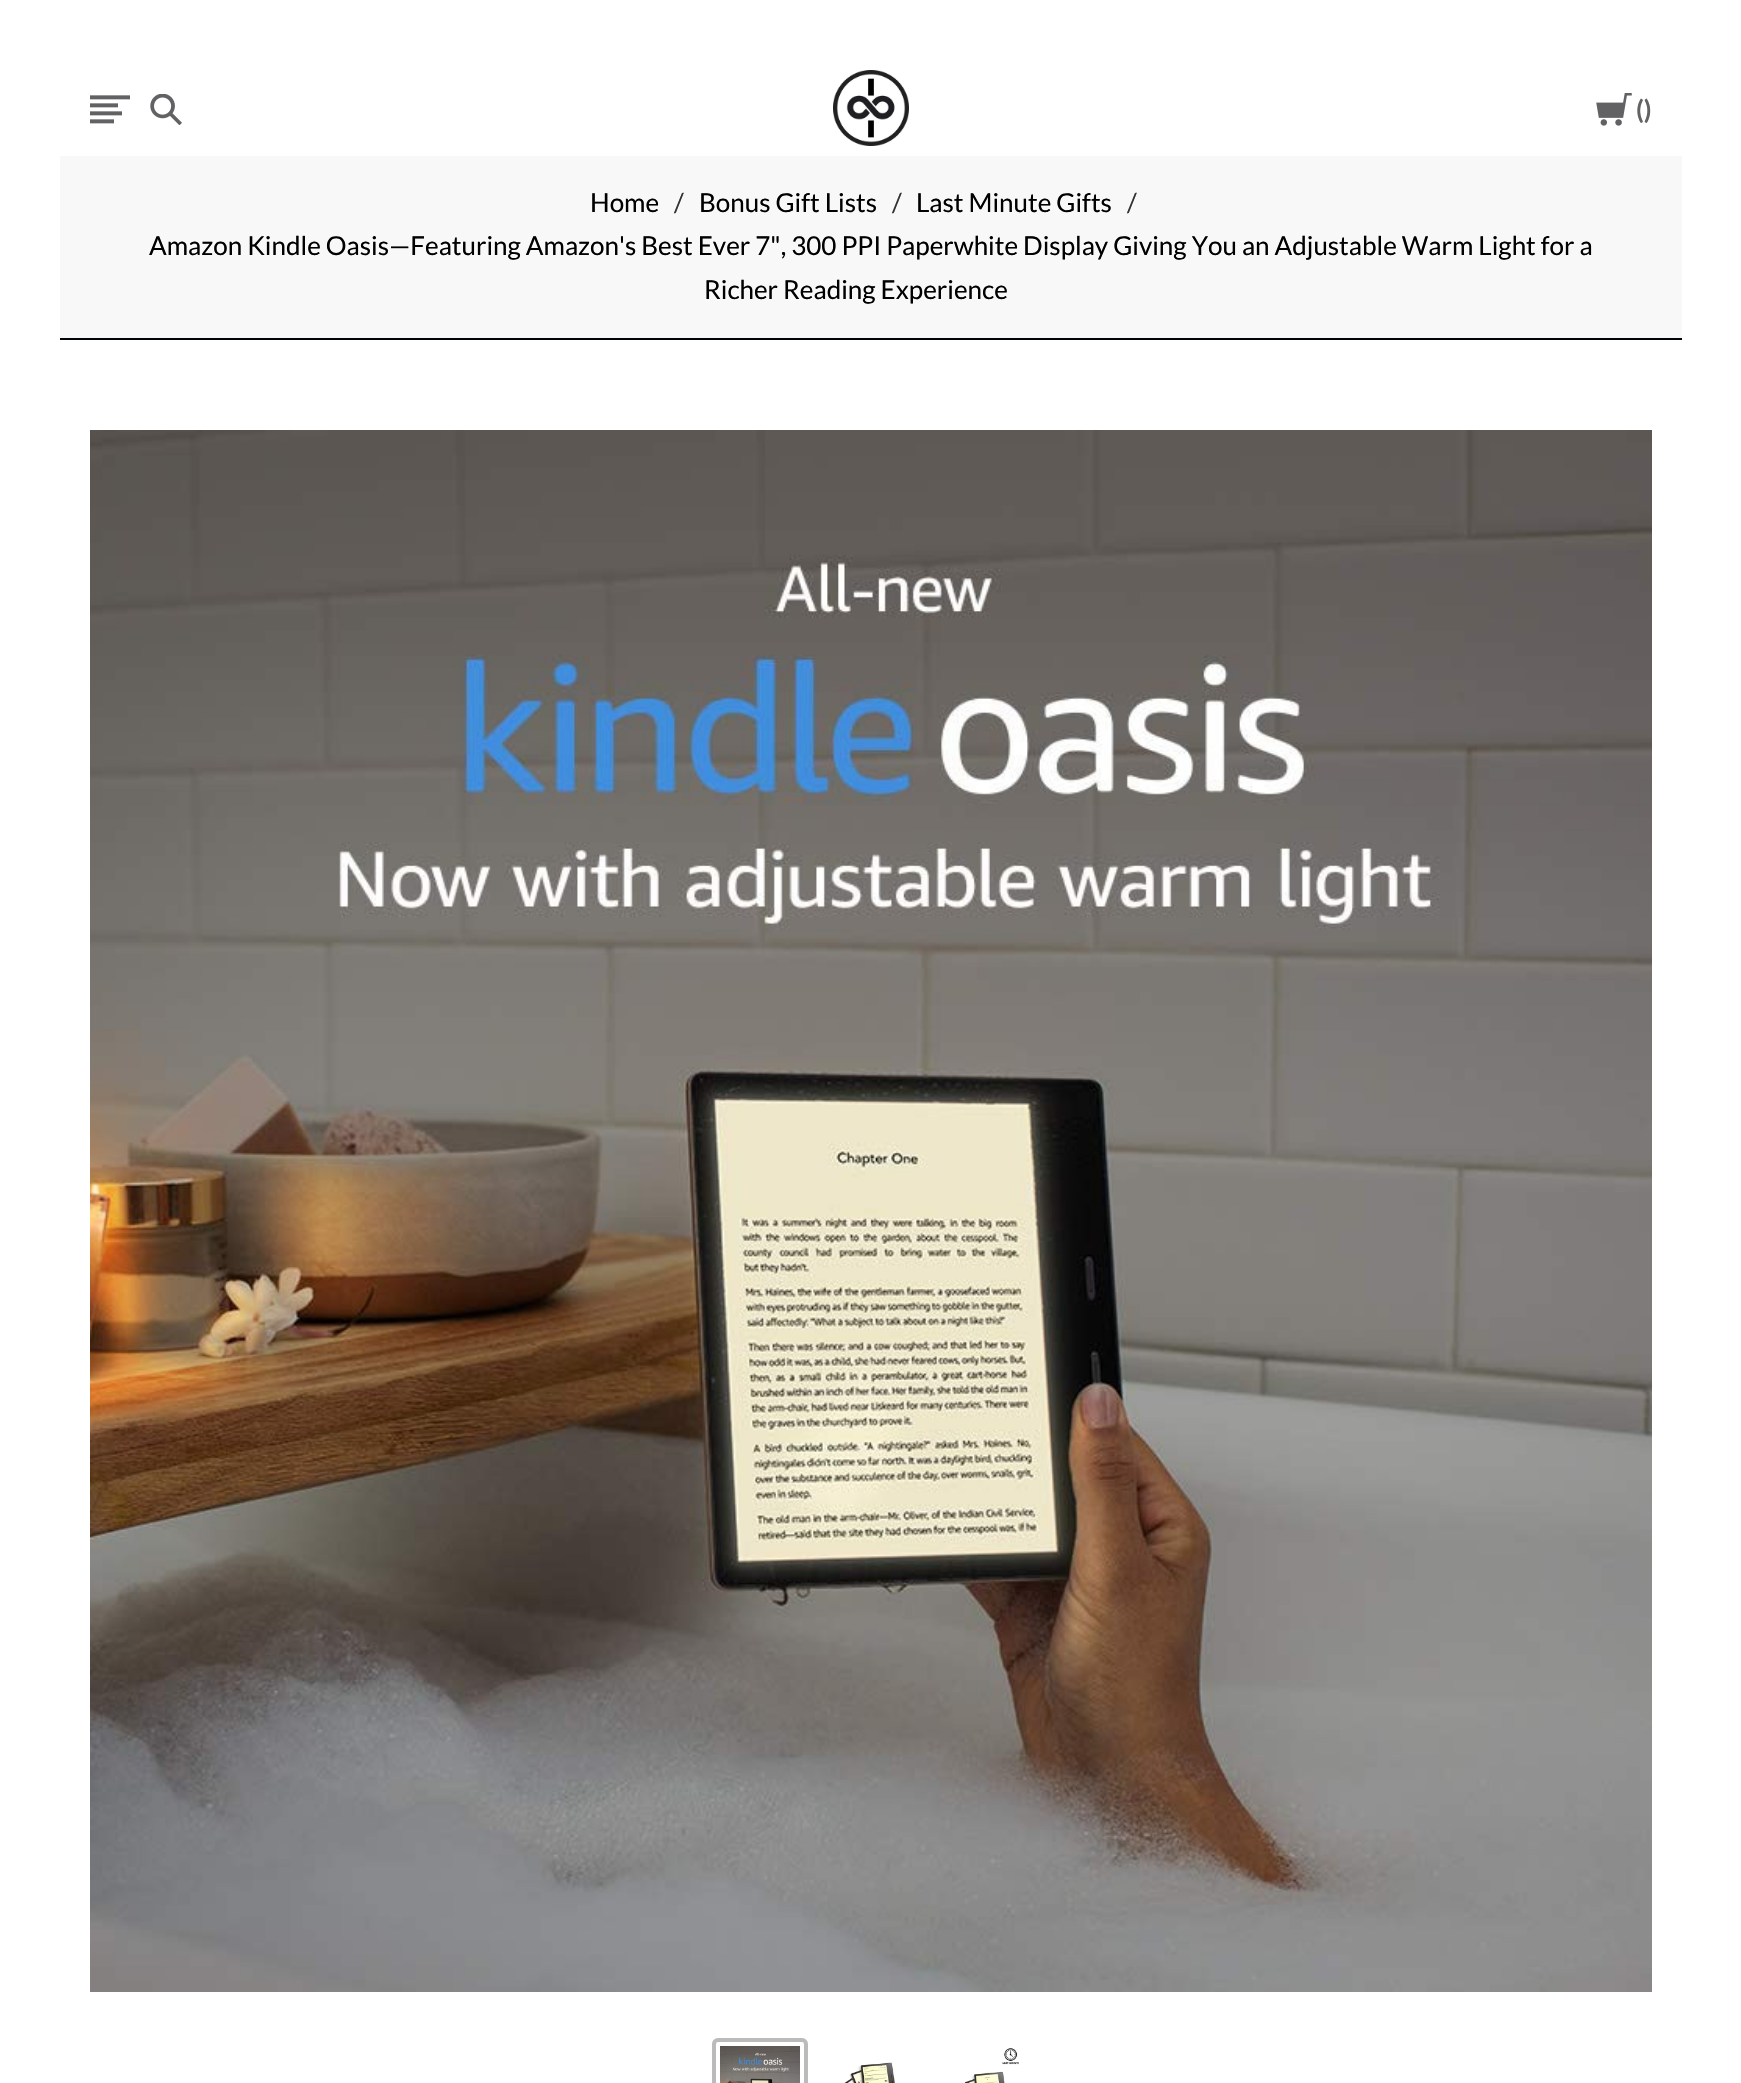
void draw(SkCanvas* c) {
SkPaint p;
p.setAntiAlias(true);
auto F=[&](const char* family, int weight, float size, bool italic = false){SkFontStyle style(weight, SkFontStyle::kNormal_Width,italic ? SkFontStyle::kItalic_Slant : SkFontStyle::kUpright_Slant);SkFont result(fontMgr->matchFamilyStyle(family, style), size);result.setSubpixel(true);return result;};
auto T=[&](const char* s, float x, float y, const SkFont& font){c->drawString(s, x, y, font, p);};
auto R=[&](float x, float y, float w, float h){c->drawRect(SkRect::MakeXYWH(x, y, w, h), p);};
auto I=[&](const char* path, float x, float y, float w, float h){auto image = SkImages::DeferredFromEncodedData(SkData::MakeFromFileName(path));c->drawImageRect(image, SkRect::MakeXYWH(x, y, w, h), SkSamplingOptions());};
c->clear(0xffffffff);
I("1.png",833,70,76,76);
I("2.png",90,95,40,29);
I("3.png",150,94,32,31);
I("4.png",1596,93,36,33);
auto f1 = F("Lato",700,26);
p.setColor(0xff626264);
T("()",1636,119,f1);
p.setColor(0xfff8f8f8);
R(60,156,1622,182);
p.setColor(0xff000308);
R(60,338,1622,2);
auto f2 = F("Lato",400,26);
p.setColor(0xff000000);
T("Home",590,212,f2);
p.setColor(0xff333333);
T("/",674,212,f2);
p.setColor(0xff000000);
T("Bonus Gift Lists",699,212,f2);
p.setColor(0xff333333);
T("/",892,212,f2);
p.setColor(0xff000000);
T("Last Minute Gifts",916,212,f2);
p.setColor(0xff333333);
T("/",1127,212,f2);
p.setColor(0xff000000);
T("Amazon Kindle Oasis—Featuring Amazon's Best Ever 7\", 300 PPI Paperwhite Display Giving You an Adjustable Warm Light for a",149,255,f2);
T("Richer Reading Experience",704,299,f2);
I("5.png",90,430,1562,1562);
p.setStroke(true);
p.setStrokeWidth(4);
p.setColor(0xffbbbbbb);
c->drawRoundRect(SkRect::MakeXYWH(714,2040,92,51),4,4,p);
I("6.png",720,2046,80,37);
I("7.png",844,2062,51,21);
I("8.png",964,2048,55,35);
}
